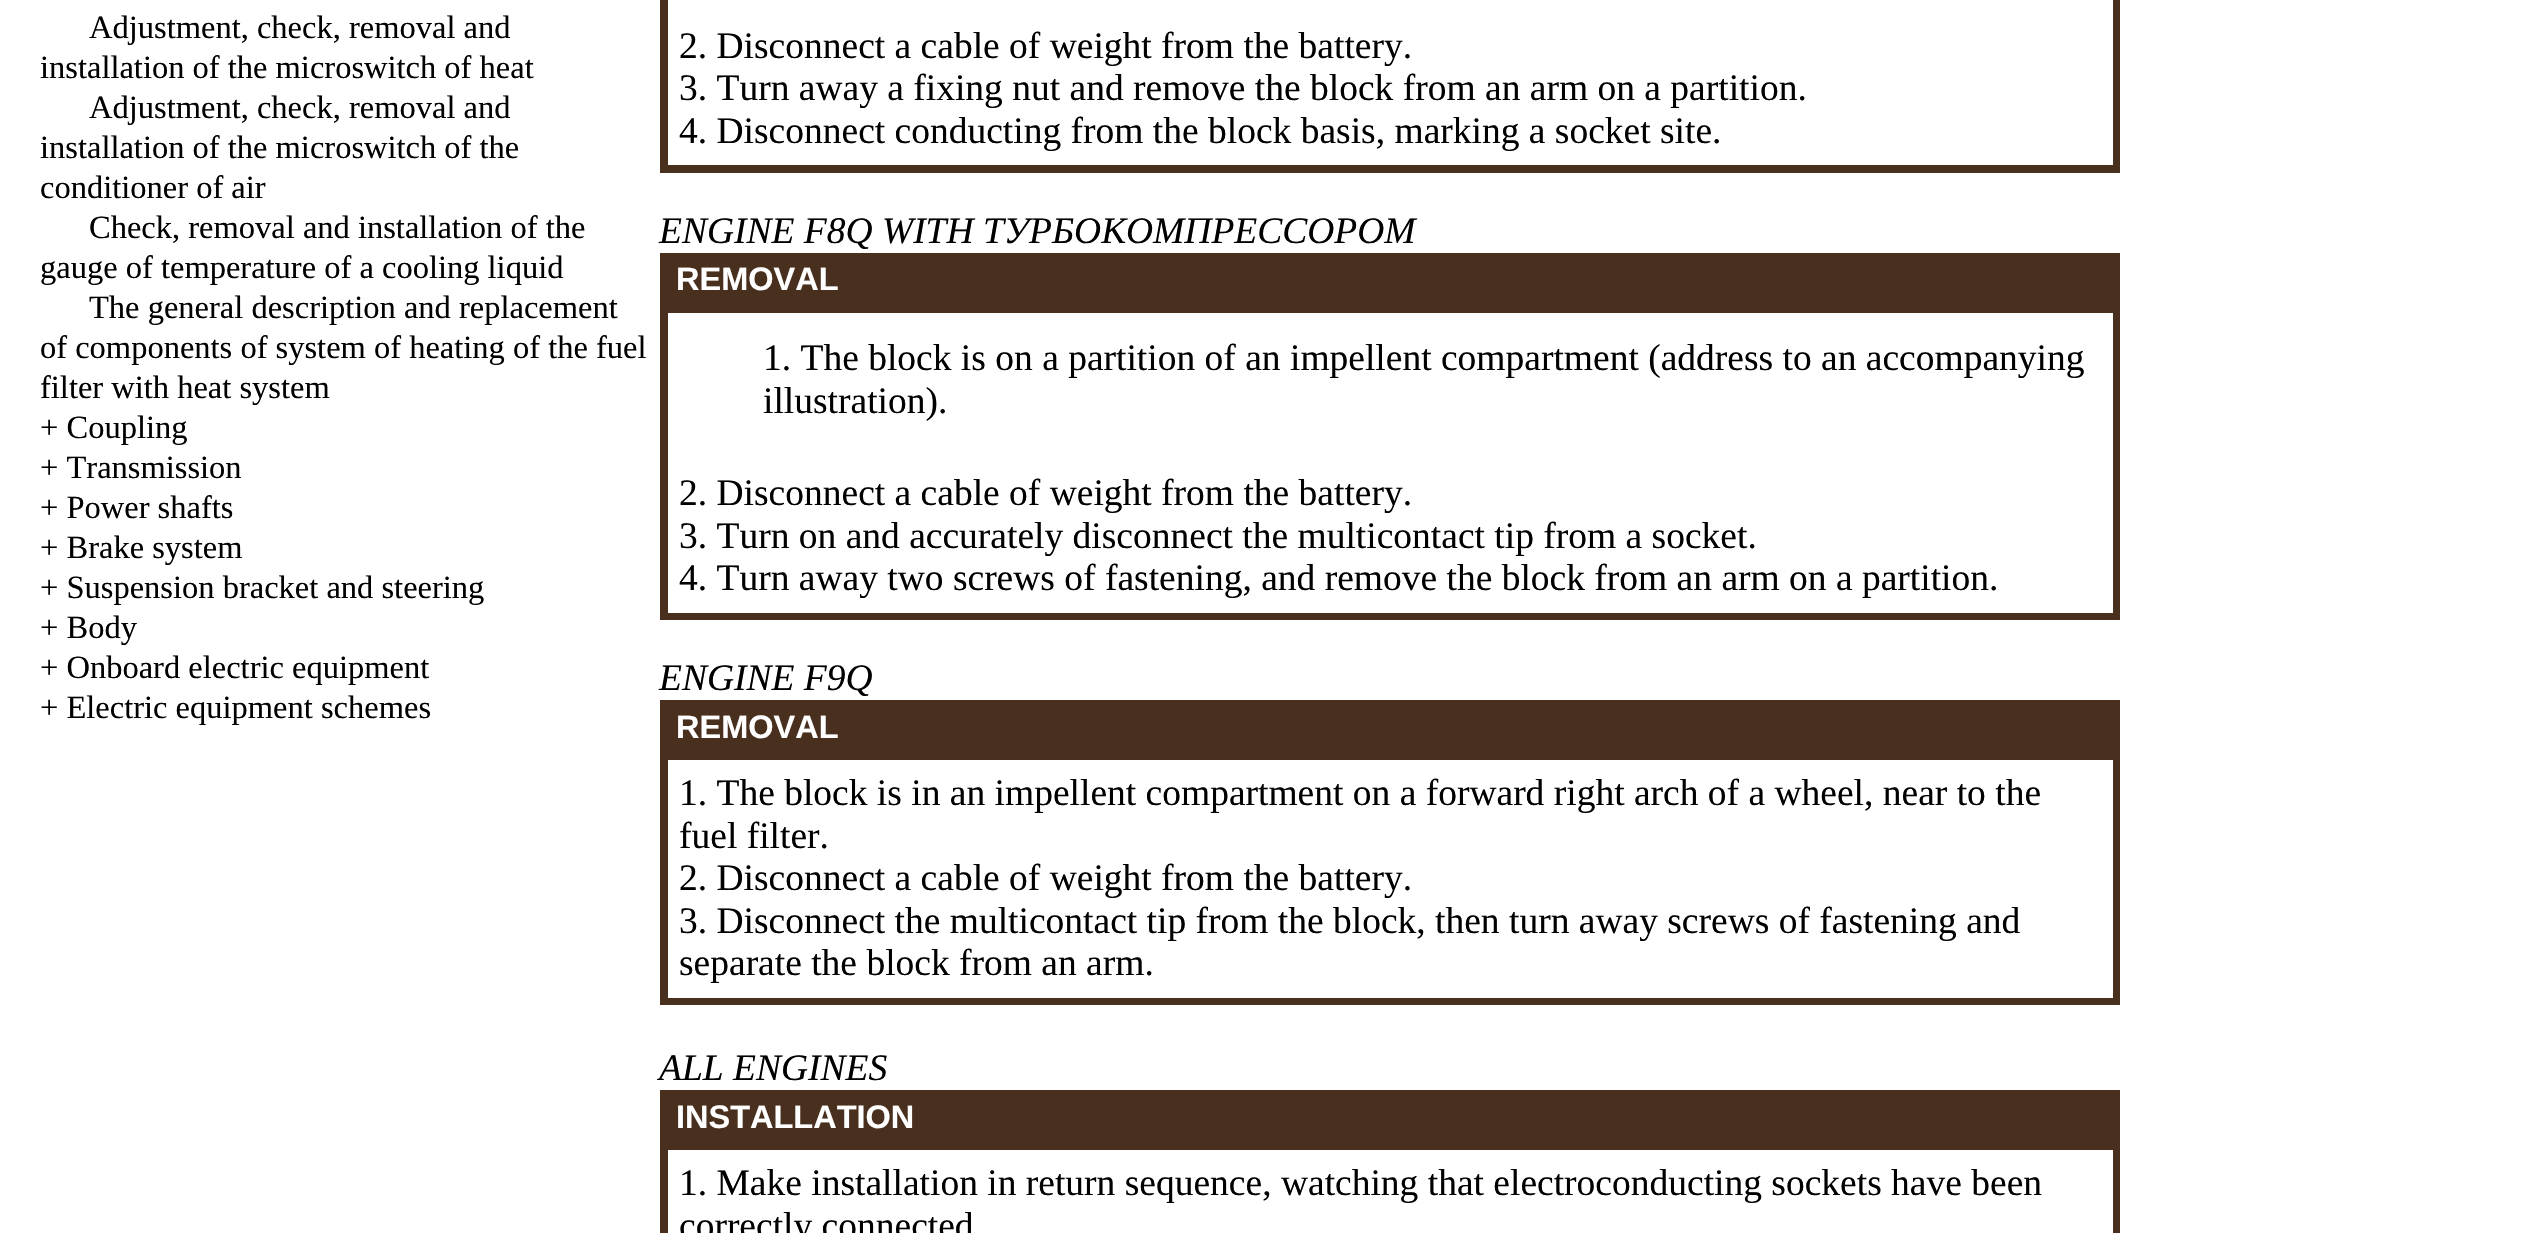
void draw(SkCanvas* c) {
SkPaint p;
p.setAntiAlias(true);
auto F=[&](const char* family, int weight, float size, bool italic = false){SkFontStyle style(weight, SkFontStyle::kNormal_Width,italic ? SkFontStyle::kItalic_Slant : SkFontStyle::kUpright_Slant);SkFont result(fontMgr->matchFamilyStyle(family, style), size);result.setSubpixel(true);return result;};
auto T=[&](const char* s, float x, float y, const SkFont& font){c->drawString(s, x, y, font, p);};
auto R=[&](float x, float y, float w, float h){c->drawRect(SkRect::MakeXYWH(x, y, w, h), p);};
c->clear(0xffffffff);
auto f1 = F("Liberation Serif",400,32.5);
p.setColor(0xff000000);
T("Adjustment, check, removal and",89,38,f1);
T("installation of the microswitch of heat",40,78,f1);
T("Adjustment, check, removal and",89,118,f1);
T("installation of the microswitch of the",40,158,f1);
T("conditioner of air",40,198,f1);
T("Check, removal and installation of the",89,238,f1);
T("gauge of temperature of a cooling liquid",40,278,f1);
T("The general description and replacement",89,318,f1);
T("of components of system of heating of the fuel",40,358,f1);
T("filter with heat system",40,398,f1);
T("+ Coupling",40,438,f1);
T("+ Transmission",40,478,f1);
T("+ Power shafts",40,518,f1);
T("+ Brake system",40,558,f1);
T("+ Suspension bracket and steering",40,598,f1);
T("+ Body",40,638,f1);
T("+ Onboard electric equipment",40,678,f1);
T("+ Electric equipment schemes",40,718,f1);
p.setColor(0xff49301e);
R(660,0,1460,173);
p.setColor(0xffffffff);
R(668,0,1445,165);
auto f2 = F("Liberation Serif",400,37.5);
p.setColor(0xff000000);
T("2. Disconnect a cable of weight from the battery.",679,58,f2);
T("3. Turn away a fixing nut and remove the block from an arm on a partition.",679,100,f2);
T("4. Disconnect conducting from the block basis, marking a socket site.",679,143,f2);
auto f3 = F("Liberation Serif",400,37.5,true);
T("ENGINE F8Q WITH ТУРБОКОМПРЕССОРОМ",659,243,f3);
p.setColor(0xff49301e);
R(660,253,1460,367);
auto f4 = F("Liberation Sans",700,32.5);
p.setColor(0xffffffff);
T("REMOVAL",676,290,f4);
R(668,313,1445,300);
p.setColor(0xff000000);
T("1. The block is on a partition of an impellent compartment (address to an accompanying",763,370,f2);
T("illustration).",763,413,f2);
T("2. Disconnect a cable of weight from the battery.",679,505,f2);
T("3. Turn on and accurately disconnect the multicontact tip from a socket.",679,548,f2);
T("4. Turn away two screws of fastening, and remove the block from an arm on a partition.",679,590,f2);
T("ENGINE F9Q",659,690,f3);
p.setColor(0xff49301e);
R(660,700,1460,305);
p.setColor(0xffffffff);
T("REMOVAL",676,738,f4);
R(668,760,1445,238);
p.setColor(0xff000000);
T("1. The block is in an impellent compartment on a forward right arch of a wheel, near to the",679,805,f2);
T("fuel filter.",679,848,f2);
T("2. Disconnect a cable of weight from the battery.",679,890,f2);
T("3. Disconnect the multicontact tip from the block, then turn away screws of fastening and",679,933,f2);
T("separate the block from an arm.",679,975,f2);
T("ALL ENGINES",659,1080,f3);
p.setColor(0xff49301e);
R(660,1090,1460,143);
p.setColor(0xffffffff);
T("INSTALLATION",676,1128,f4);
R(668,1150,1445,83);
p.setColor(0xff000000);
T("1. Make installation in return sequence, watching that electroconducting sockets have been",679,1195,f2);
T("correctly connected",679,1238,f2);
}
